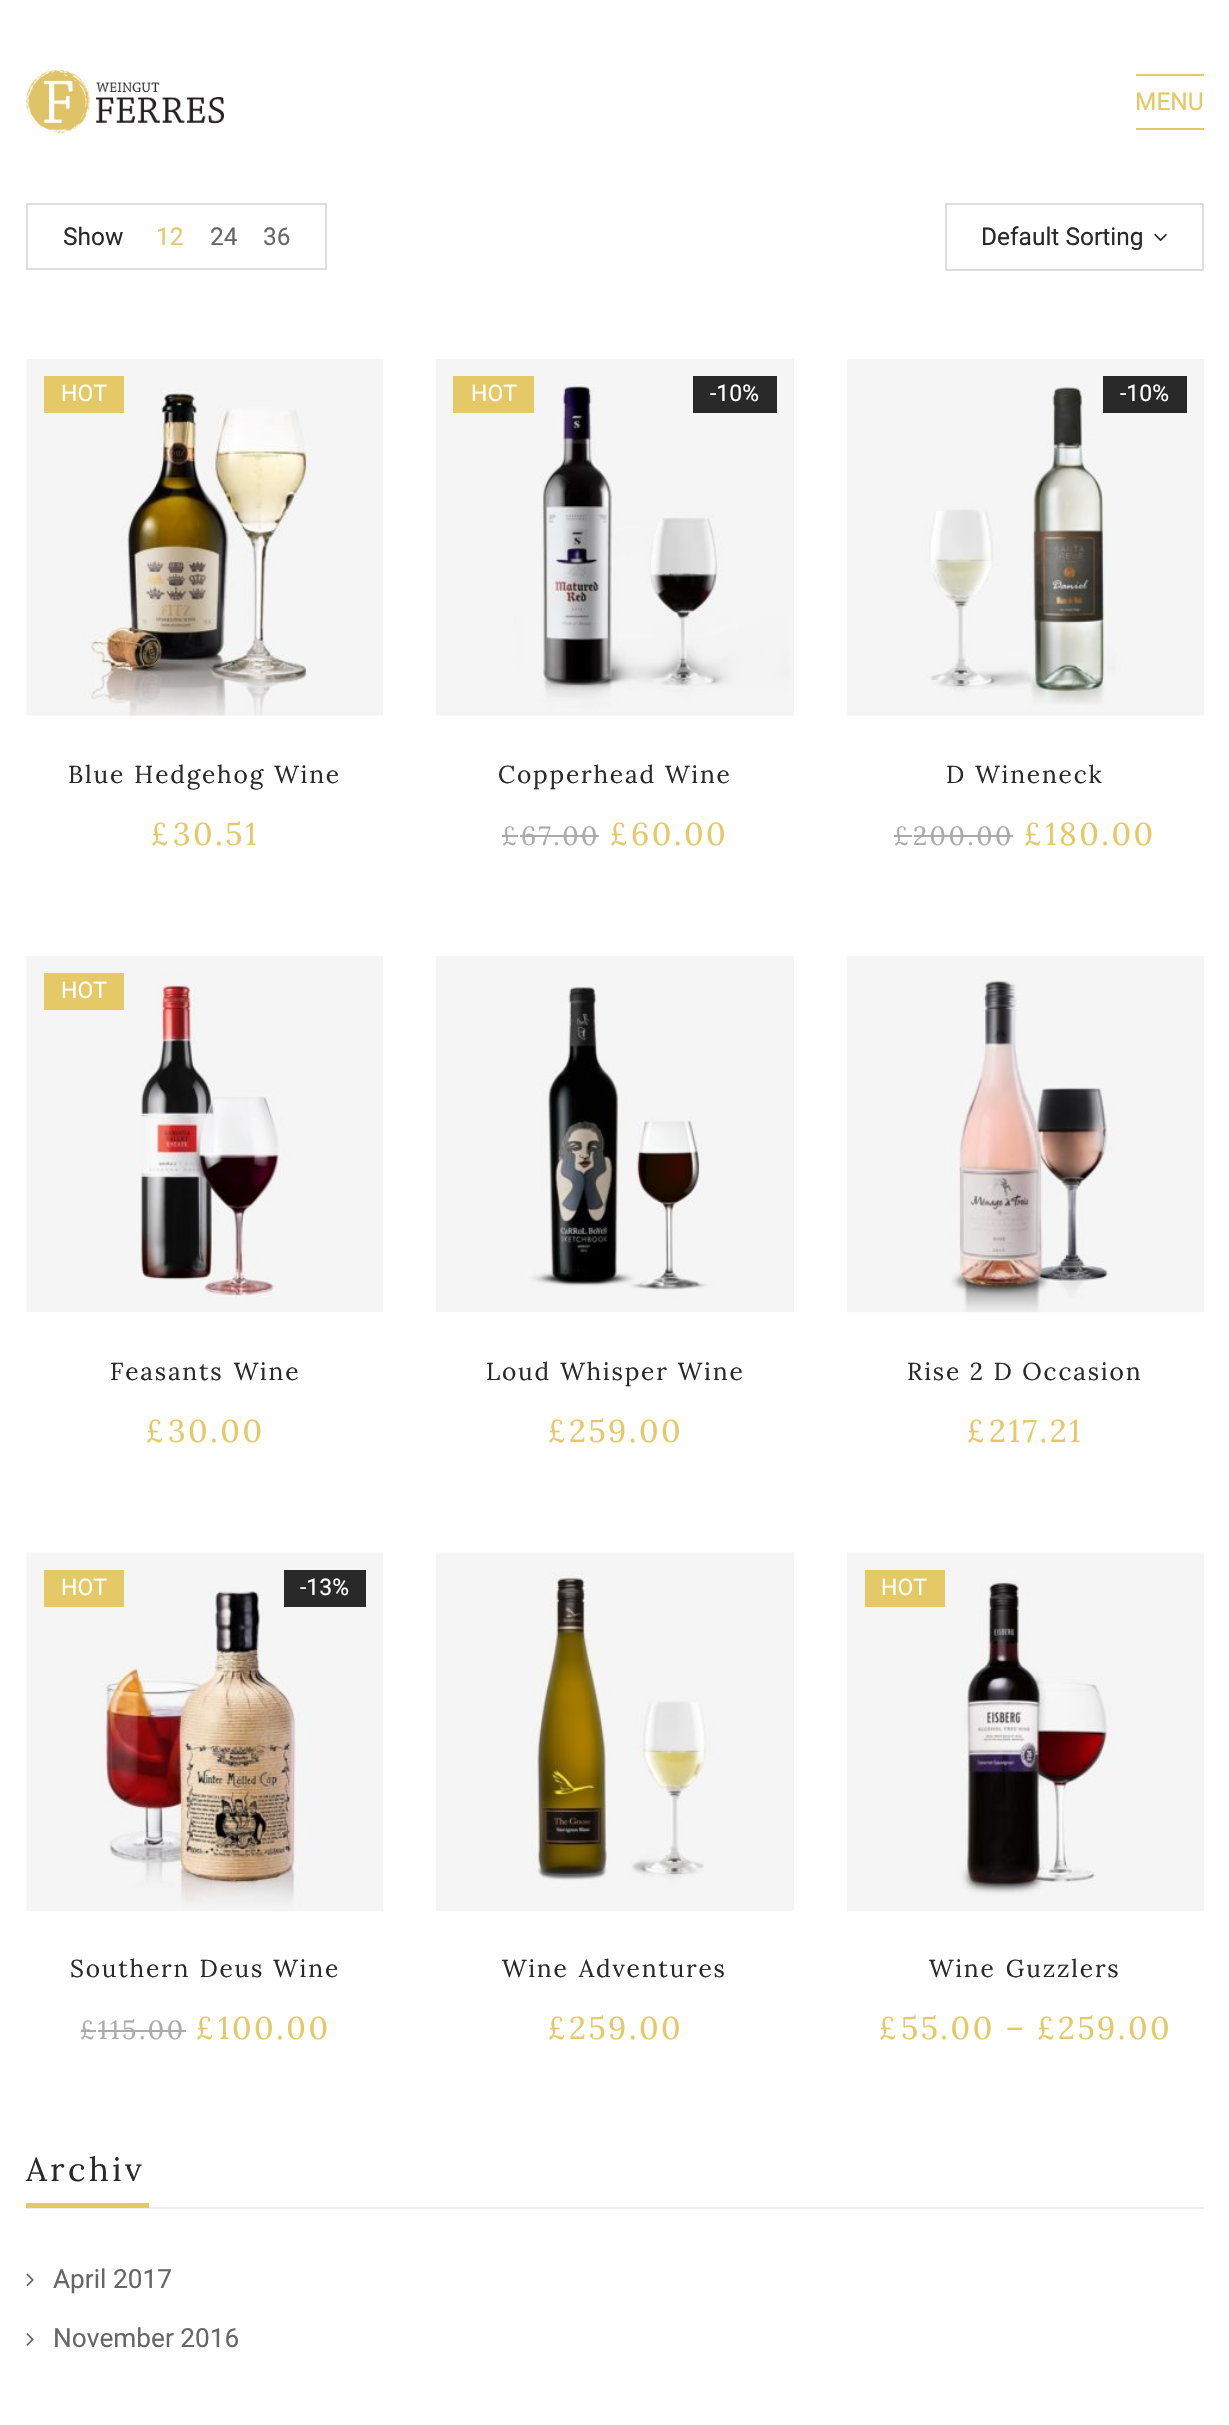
void draw(SkCanvas* c) {
SkPaint p;
p.setAntiAlias(true);
auto F=[&](const char* family, int weight, float size, bool italic = false){SkFontStyle style(weight, SkFontStyle::kNormal_Width,italic ? SkFontStyle::kItalic_Slant : SkFontStyle::kUpright_Slant);SkFont result(fontMgr->matchFamilyStyle(family, style), size);result.setSubpixel(true);return result;};
auto T=[&](const char* s, float x, float y, const SkFont& font){c->drawString(s, x, y, font, p);};
auto L=[&](const char* s, float x, float y, const SkFont& font, const SkPaint& ink, float letter, float word){std::vector<SkGlyphID> glyphs(font.countText(s, strlen(s), SkTextEncoding::kUTF8));std::vector<float> xs(glyphs.size());font.textToGlyphs(s, strlen(s), SkTextEncoding::kUTF8, glyphs);font.getXPos(glyphs, xs, x);float extra = 0;for (size_t i = 0; i < glyphs.size(); i++) {xs[i] += extra;extra += letter + word * (glyphs[i] == font.unicharToGlyph(' '));}c->drawTextBlob(SkTextBlob::MakeFromPosHGlyphs(glyphs, xs, y, font), 0, 0, ink);};
auto R=[&](float x, float y, float w, float h){c->drawRect(SkRect::MakeXYWH(x, y, w, h), p);};
auto I=[&](const char* path, float x, float y, float w, float h){auto image = SkImages::DeferredFromEncodedData(SkData::MakeFromFileName(path));c->drawImageRect(image, SkRect::MakeXYWH(x, y, w, h), SkSamplingOptions());};
c->clear(0xffffffff);
I("1.png",26,70,198,63);
p.setColor(0xffe4c966);
R(1136,74,68,2);
R(1136,128,68,2);
auto f1 = F("Roboto",400,24.5);
T("MENU",1135,110,f1);
p.setStroke(true);
p.setStrokeWidth(2);
p.setColor(0xffdddddd);
c->drawRect(SkRect::MakeXYWH(27,204,299,65),p);
p.setStroke(false);
p.setColor(0xff292929);
T("Show",63,245,f1);
p.setColor(0xffe4c966);
T("12",156,245,f1);
p.setColor(0xff666666);
T("24",210,245,f1);
T("36",263,245,f1);
p.setStroke(true);
p.setColor(0xffdddddd);
c->drawRect(SkRect::MakeXYWH(946,204,257,66),p);
p.setStroke(false);
p.setColor(0xff292929);
T("Default Sorting",981,245,f1);
I("2.png",1154,233,13,9);
I("3.png",26,359,357,357);
p.setColor(0xffe4c966);
R(44,376,80,37);
auto f2 = F("Roboto",400,23);
p.setColor(0xffffffff);
T("HOT",61,401,f2);
auto f3 = F("Lora",400,24.5);
p.setColor(0xff292929);
L("Blue Hedgehog Wine",68,783,f3,p,1.8,1);
auto f4 = F("Lora",400,31.5);
p.setColor(0xffe4c966);
L("£",151,845,f4,p,2.5,0);
L("30.51",173,845,f4,p,2.5,0);
I("4.png",436,359,358,357);
R(453,376,81,37);
p.setColor(0xffffffff);
T("HOT",471,401,f2);
p.setColor(0xff292929);
R(693,376,84,37);
p.setColor(0xffffffff);
T("-10%",710,401,f2);
p.setColor(0xff292929);
L("Copperhead Wine",498,783,f3,p,1.8,1);
auto f5 = F("Lora",400,26.25);
p.setColor(0xffababab);
L("£",502,845,f5,p,2.5,0);
R(502,835,16,2);
L("67.00",521,845,f5,p,2.5,0);
R(520,835,79,2);
p.setColor(0xffe4c966);
L("£",610,845,f4,p,2.5,0);
L("60.00",631,845,f4,p,2.5,0);
I("5.png",847,359,357,357);
p.setColor(0xff292929);
R(1103,376,84,37);
p.setColor(0xffffffff);
T("-10%",1120,401,f2);
p.setColor(0xff292929);
L("D Wineneck",946,783,f3,p,1.8,1);
p.setColor(0xffababab);
L("£",894,845,f5,p,2.5,0);
R(894,835,18,2);
L("200.00",913,845,f5,p,2.5,0);
R(914,835,99,2);
p.setColor(0xffe4c966);
L("£",1024,845,f4,p,2.5,0);
L("180.00",1045,845,f4,p,2.5,0);
I("6.png",26,956,357,356);
R(44,973,80,37);
p.setColor(0xffffffff);
T("HOT",61,998,f2);
p.setColor(0xff292929);
L("Feasants Wine",110,1380,f3,p,1.8,2);
p.setColor(0xffe4c966);
L("£",146,1442,f4,p,2.5,0);
L("30.00",168,1442,f4,p,2.5,0);
I("7.png",436,956,358,356);
p.setColor(0xff292929);
L("Loud Whisper Wine",486,1380,f3,p,1.8,1);
p.setColor(0xffe4c966);
L("£",548,1442,f4,p,2.5,0);
L("259.00",569,1442,f4,p,2.5,0);
I("8.png",847,956,357,357);
p.setColor(0xff292929);
L("Rise 2 D Occasion",907,1380,f3,p,1.8,.5);
p.setColor(0xffe4c966);
L("£",967,1442,f4,p,2.5,0);
L("217.21",989,1442,f4,p,2.5,0);
I("9.png",26,1552,357,359);
R(44,1570,80,37);
p.setColor(0xffffffff);
T("HOT",61,1595,f2);
p.setColor(0xff292929);
R(284,1570,82,37);
p.setColor(0xffffffff);
T("-13%",300,1595,f2);
p.setColor(0xff292929);
L("Southern Deus Wine",70,1977,f3,p,1.8,1);
p.setColor(0xffababab);
L("£",80,2039,f5,p,2.5,0);
R(81,2030,15,2);
L("115.00",98,2039,f5,p,2.5,0);
R(98,2030,88,2);
p.setColor(0xffe4c966);
L("£",196,2039,f4,p,2.5,0);
L("100.00",218,2039,f4,p,2.5,0);
I("10.png",436,1552,358,359);
p.setColor(0xff292929);
L("Wine Adventures",502,1977,f3,p,1.8,2);
p.setColor(0xffe4c966);
L("£",548,2039,f4,p,2.5,0);
L("259.00",569,2039,f4,p,2.5,0);
I("11.png",847,1552,357,359);
R(865,1570,80,37);
p.setColor(0xffffffff);
T("HOT",881,1595,f2);
p.setColor(0xff292929);
L("Wine Guzzlers",929,1977,f3,p,1.8,2);
p.setColor(0xffe4c966);
L("£",879,2039,f4,p,2.5,0);
L("55.00 – £",901,2039,f4,p,2.5,0);
L("259.00",1058,2039,f4,p,2.5,0);
p.setColor(0xffeaeaea);
R(26,2207,1178,2);
auto f6 = F("Lora",400,33);
p.setColor(0xff292929);
L("Archiv",26,2181,f6,p,3.5,0);
p.setColor(0xffe4c966);
R(26,2203,123,5);
I("12.png",26,2273,8,14);
auto f7 = F("Roboto",400,26.25);
p.setColor(0xff666666);
T("April 2017",53,2288,f7);
I("13.png",26,2333,8,13);
T("November 2016",53,2347,f7);
}
